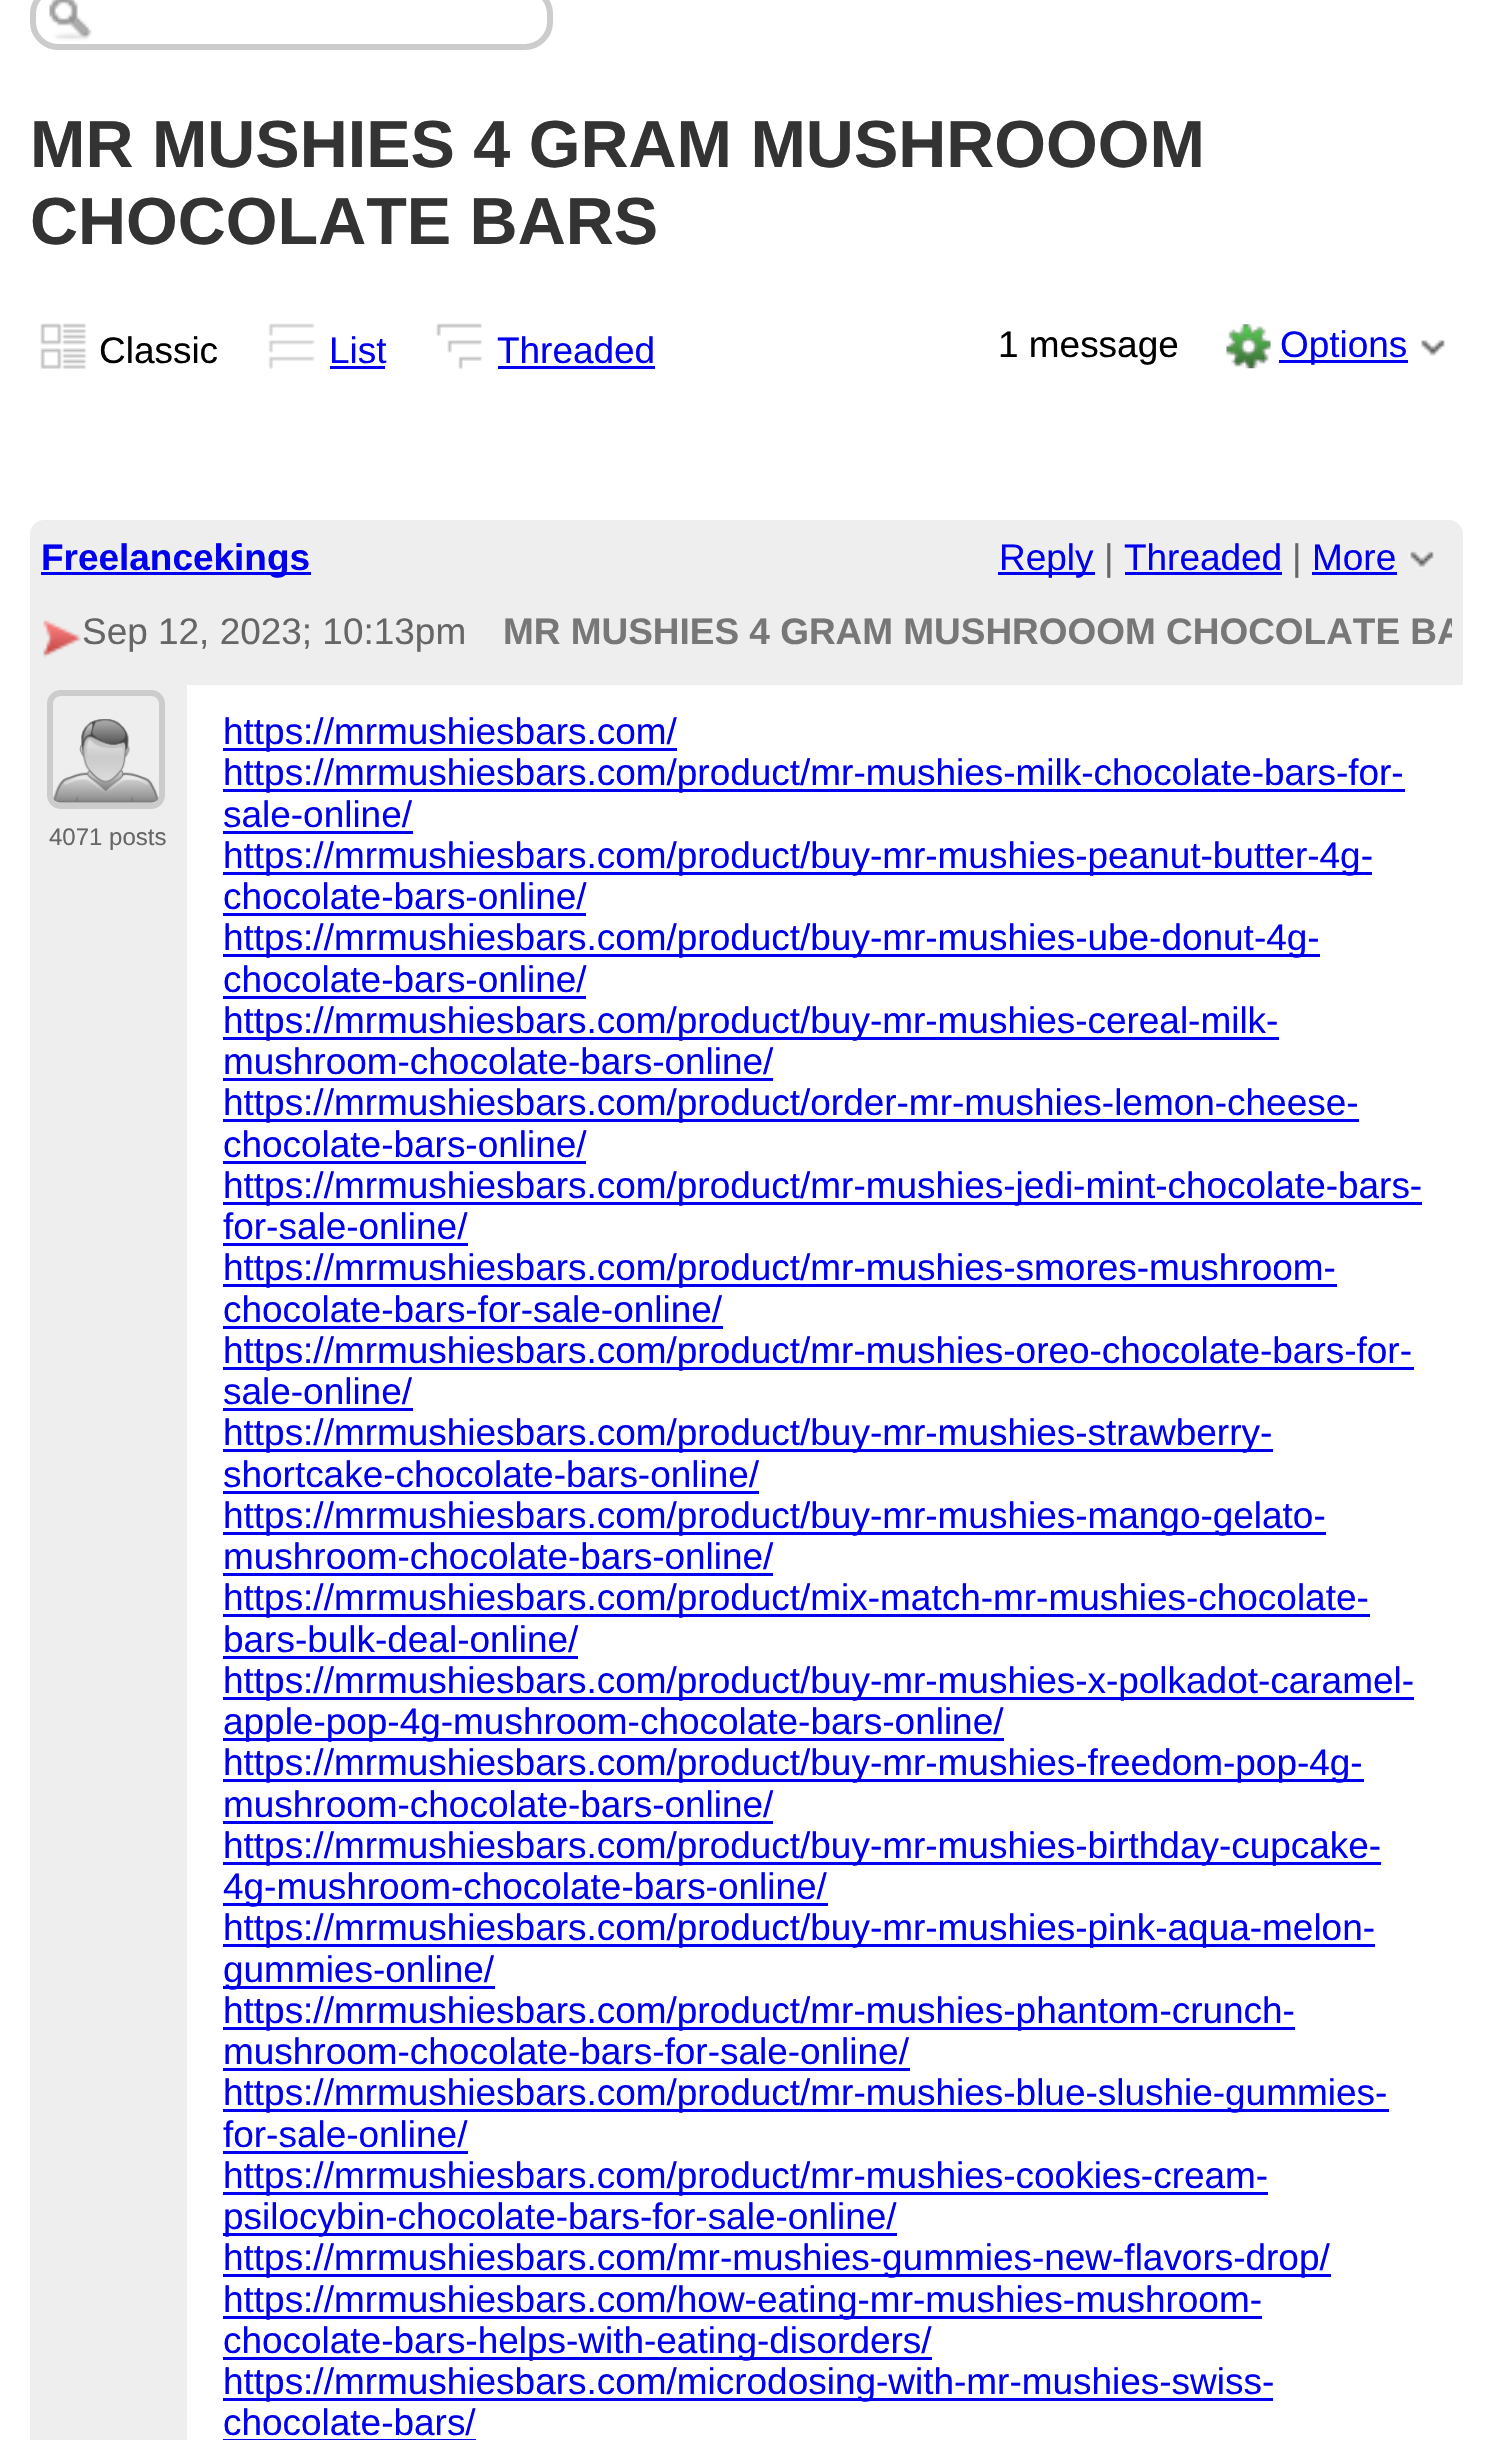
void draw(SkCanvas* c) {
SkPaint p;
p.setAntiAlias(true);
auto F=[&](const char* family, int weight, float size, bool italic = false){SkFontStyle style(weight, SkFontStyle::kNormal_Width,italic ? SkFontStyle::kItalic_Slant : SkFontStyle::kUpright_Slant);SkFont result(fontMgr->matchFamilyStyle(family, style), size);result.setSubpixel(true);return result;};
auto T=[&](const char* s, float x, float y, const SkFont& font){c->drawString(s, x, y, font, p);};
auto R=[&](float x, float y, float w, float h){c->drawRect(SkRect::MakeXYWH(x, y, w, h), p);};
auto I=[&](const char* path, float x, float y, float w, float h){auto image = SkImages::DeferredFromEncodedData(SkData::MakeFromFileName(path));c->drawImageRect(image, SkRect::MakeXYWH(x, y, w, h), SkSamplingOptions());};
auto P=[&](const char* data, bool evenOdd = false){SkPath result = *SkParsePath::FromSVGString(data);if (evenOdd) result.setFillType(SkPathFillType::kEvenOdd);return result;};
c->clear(0xffffffff);
I("1.png",49,0,43,41);
p.setStroke(true);
p.setStrokeWidth(6);
p.setColor(0xffcccccc);
c->drawRoundRect(SkRect::MakeXYWH(33,-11,517,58),25,25,p);
auto f1 = F("Liberation Sans",700,66.5);
p.setStroke(false);
p.setColor(0xff333333);
T("MR MUSHIES 4 GRAM MUSHROOOM",30,167,f1);
T("CHOCOLATE BARS",30,244,f1);
I("2.png",40,323,46,46);
auto f2 = F("Liberation Sans",400,36.95);
p.setColor(0xff000000);
T("Classic",99,363,f2);
I("3.png",268,323,47,46);
p.setColor(0xff0000ee);
T("List",329,363,f2);
R(330,366,55,3);
I("4.png",436,323,46,46);
T("Threaded",497,363,f2);
R(498,366,157,3);
p.setColor(0xff000000);
T("1 message",998,357,f2);
I("5.png",1226,324,45,45);
p.setColor(0xff0000ee);
R(1279,360,129,3);
T("Options",1280,357,f2);
I("6.png",1421,340,24,16);
p.setColor(0xffeeeeee);
c->drawPath(P("M44 520h1405c7.5 0 14 6.5 14 14v151h-1433v-151c0-7.5 6.5-14 14-14z"),p);
p.setColor(0xff0000ee);
R(41,572,270,3);
auto f3 = F("Liberation Sans",700,36.95);
T("Freelancekings",41,570,f3);
R(998,572,97,3);
T("Reply",999,570,f2);
p.setColor(0xff666666);
T("|",1104,570,f2);
p.setColor(0xff0000ee);
T("Threaded",1124,570,f2);
R(1125,572,157,3);
p.setColor(0xff666666);
T("|",1292,570,f2);
p.setColor(0xff0000ee);
T("More",1312,570,f2);
R(1312,572,85,3);
I("7.png",1408,551,27,18);
I("8.png",43,620,38,38);
p.setColor(0xff666666);
T("Sep 12, 2023; 10:13pm",82,644,f2);
c->save();
c->clipRect(SkRect::MakeXYWH(41,611,1411,49));
p.setColor(0xff777777);
T("MR MUSHIES 4 GRAM MUSHROOOM CHOCOLATE BA",503,644,f3);
c->restore();
p.setColor(0xffeeeeee);
R(30,685,157,1755);
p.setStroke(true);
p.setColor(0xffcccccc);
c->drawRoundRect(SkRect::MakeXYWH(50,693,112,113),11,11,p);
I("9.png",53,719,106,84);
auto f4 = F("Liberation Sans",400,24);
p.setStroke(false);
p.setColor(0xff666666);
T("4071 posts",49,845,f4);
p.setColor(0xff0000ee);
R(223,748,454,3);
T("https://mrmushiesbars.com/",223,744,f2);
R(223,789,1182,3);
T("https://mrmushiesbars.com/product/mr-mushies-milk-chocolate-bars-for-",223,785,f2);
T("sale-online/",223,827,f2);
R(223,831,190,3);
R(223,872,1149,3);
T("https://mrmushiesbars.com/product/buy-mr-mushies-peanut-butter-4g-",223,868,f2);
T("chocolate-bars-online/",223,909,f2);
R(223,913,363,3);
R(223,954,1097,3);
T("https://mrmushiesbars.com/product/buy-mr-mushies-ube-donut-4g-",223,950,f2);
T("chocolate-bars-online/",223,992,f2);
R(223,996,363,3);
R(223,1037,1056,3);
T("https://mrmushiesbars.com/product/buy-mr-mushies-cereal-milk-",223,1033,f2);
T("mushroom-chocolate-bars-online/",223,1074,f2);
R(223,1078,550,3);
R(223,1119,1136,3);
T("https://mrmushiesbars.com/product/order-mr-mushies-lemon-cheese-",223,1115,f2);
T("chocolate-bars-online/",223,1157,f2);
R(223,1161,363,3);
R(223,1202,1199,3);
T("https://mrmushiesbars.com/product/mr-mushies-jedi-mint-chocolate-bars-",223,1198,f2);
T("for-sale-online/",223,1239,f2);
R(223,1243,245,3);
R(223,1284,1114,3);
T("https://mrmushiesbars.com/product/mr-mushies-smores-mushroom-",223,1280,f2);
T("chocolate-bars-for-sale-online/",223,1322,f2);
R(223,1326,500,3);
R(223,1367,1191,3);
T("https://mrmushiesbars.com/product/mr-mushies-oreo-chocolate-bars-for-",223,1363,f2);
T("sale-online/",223,1404,f2);
R(223,1408,190,3);
R(223,1449,1050,3);
T("https://mrmushiesbars.com/product/buy-mr-mushies-strawberry-",223,1445,f2);
T("shortcake-chocolate-bars-online/",223,1487,f2);
R(223,1491,536,3);
R(223,1532,1103,3);
T("https://mrmushiesbars.com/product/buy-mr-mushies-mango-gelato-",223,1528,f2);
T("mushroom-chocolate-bars-online/",223,1569,f2);
R(223,1573,550,3);
R(223,1614,1147,3);
T("https://mrmushiesbars.com/product/mix-match-mr-mushies-chocolate-",223,1610,f2);
T("bars-bulk-deal-online/",223,1652,f2);
R(223,1656,355,3);
R(223,1697,1191,3);
T("https://mrmushiesbars.com/product/buy-mr-mushies-x-polkadot-caramel-",223,1693,f2);
R(223,1738,781,3);
T("apple-pop-4g-mushroom-chocolate-bars-online/",223,1734,f2);
R(223,1779,1141,3);
T("https://mrmushiesbars.com/product/buy-mr-mushies-freedom-pop-4g-",223,1775,f2);
T("mushroom-chocolate-bars-online/",223,1817,f2);
R(223,1821,550,3);
R(223,1862,1158,3);
T("https://mrmushiesbars.com/product/buy-mr-mushies-birthday-cupcake-",223,1858,f2);
R(223,1903,605,3);
T("4g-mushroom-chocolate-bars-online/",223,1899,f2);
R(223,1944,1152,3);
T("https://mrmushiesbars.com/product/buy-mr-mushies-pink-aqua-melon-",223,1940,f2);
R(223,1986,272,3);
T("gummies-online/",223,1982,f2);
R(223,2027,1072,3);
T("https://mrmushiesbars.com/product/mr-mushies-phantom-crunch-",223,2023,f2);
T("mushroom-chocolate-bars-for-sale-online/",223,2064,f2);
R(223,2068,687,3);
R(223,2109,1166,3);
T("https://mrmushiesbars.com/product/mr-mushies-blue-slushie-gummies-",223,2105,f2);
T("for-sale-online/",223,2147,f2);
R(223,2151,245,3);
R(223,2192,1045,3);
T("https://mrmushiesbars.com/product/mr-mushies-cookies-cream-",223,2188,f2);
R(223,2233,674,3);
T("psilocybin-chocolate-bars-for-sale-online/",223,2229,f2);
R(223,2274,1108,3);
T("https://mrmushiesbars.com/mr-mushies-gummies-new-flavors-drop/",223,2270,f2);
R(223,2316,1039,3);
T("https://mrmushiesbars.com/how-eating-mr-mushies-mushroom-",223,2312,f2);
R(223,2357,709,3);
T("chocolate-bars-helps-with-eating-disorders/",223,2353,f2);
R(223,2398,1050,3);
T("https://mrmushiesbars.com/microdosing-with-mr-mushies-swiss-",223,2394,f2);
T("chocolate-bars/",223,2435,f2);
R(223,2439,253,1);
}
